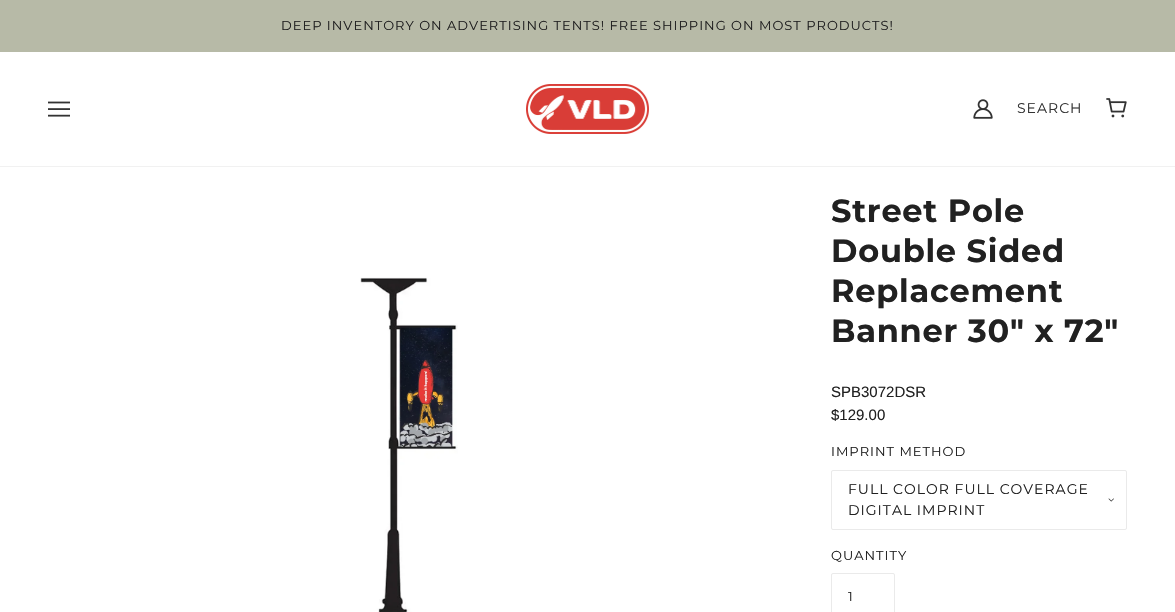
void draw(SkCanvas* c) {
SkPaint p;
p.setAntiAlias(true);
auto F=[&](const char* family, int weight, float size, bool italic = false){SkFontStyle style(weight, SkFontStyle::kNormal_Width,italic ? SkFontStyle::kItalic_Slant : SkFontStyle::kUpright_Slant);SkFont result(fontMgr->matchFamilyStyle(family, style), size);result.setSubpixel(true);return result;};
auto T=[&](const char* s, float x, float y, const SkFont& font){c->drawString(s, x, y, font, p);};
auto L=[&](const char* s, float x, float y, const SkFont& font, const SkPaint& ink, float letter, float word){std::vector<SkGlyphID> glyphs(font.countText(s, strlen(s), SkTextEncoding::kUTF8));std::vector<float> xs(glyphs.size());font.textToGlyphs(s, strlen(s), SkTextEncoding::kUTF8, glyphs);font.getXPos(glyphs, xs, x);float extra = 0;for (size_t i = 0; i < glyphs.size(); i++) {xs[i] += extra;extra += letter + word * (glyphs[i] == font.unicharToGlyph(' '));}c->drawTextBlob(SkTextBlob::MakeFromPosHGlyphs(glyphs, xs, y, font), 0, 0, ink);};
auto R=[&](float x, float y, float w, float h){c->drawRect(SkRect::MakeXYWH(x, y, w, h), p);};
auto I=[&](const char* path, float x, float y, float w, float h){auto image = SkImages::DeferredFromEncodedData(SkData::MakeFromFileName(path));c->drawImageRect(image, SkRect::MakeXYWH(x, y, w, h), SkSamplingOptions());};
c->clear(0xffffffff);
p.setColor(0xffb7baa7);
R(0,0,1175,52);
auto f1 = F("Montserrat",400,13);
p.setColor(0xff212121);
L("DEEP INVENTORY ON ADVERTISING TENTS! FREE SHIPPING ON MOST PRODUCTS!",281,30,f1,p,1,0);
p.setColor(0xfff1f1f1);
R(0,166,1175,1);
I("1.png",48,101,22,16);
I("2.png",526,84,123,50);
I("3.png",973,99,20,20);
auto f2 = F("Montserrat",400,14);
p.setColor(0xff333333);
L("SEARCH",1017,113,f2,p,1,0);
I("4.png",1106,98,21,20);
I("5.png",360,277,98,335);
auto f3 = F("Montserrat",700,32);
p.setColor(0xff212121);
L("Street Pole",831,222,f3,p,.75,0);
L("Double Sided",831,262,f3,p,.75,0);
L("Replacement",831,302,f3,p,.75,0);
L("Banner 30\" x 72\"",831,342,f3,p,.75,0);
auto f4 = F("Liberation Sans",400,15);
T("SPB3072DSR",831,397,f4);
T("$129.00",831,420,f4);
L("IMPRINT METHOD",831,456,f1,p,1,0);
p.setStroke(true);
p.setStrokeWidth(1);
p.setColor(0xffeaeaea);
c->drawRoundRect(SkRect::MakeXYWH(831.5,470.5,295,59),1.5,1.5,p);
p.setStroke(false);
p.setColor(0xff212121);
L("FULL COLOR FULL COVERAGE",848,494,f2,p,1,0);
L("DIGITAL IMPRINT",848,515,f2,p,1,0);
I("6.png",1108,498,6,4);
L("QUANTITY",831,560,f1,p,1,0);
p.setStroke(true);
p.setColor(0xffeaeaea);
c->drawRoundRect(SkRect::MakeXYWH(831.5,573.5,63,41),1.5,1.5,p);
p.setStroke(false);
p.setColor(0xff212121);
L("1",848,601,f1,p,1,0);
}
